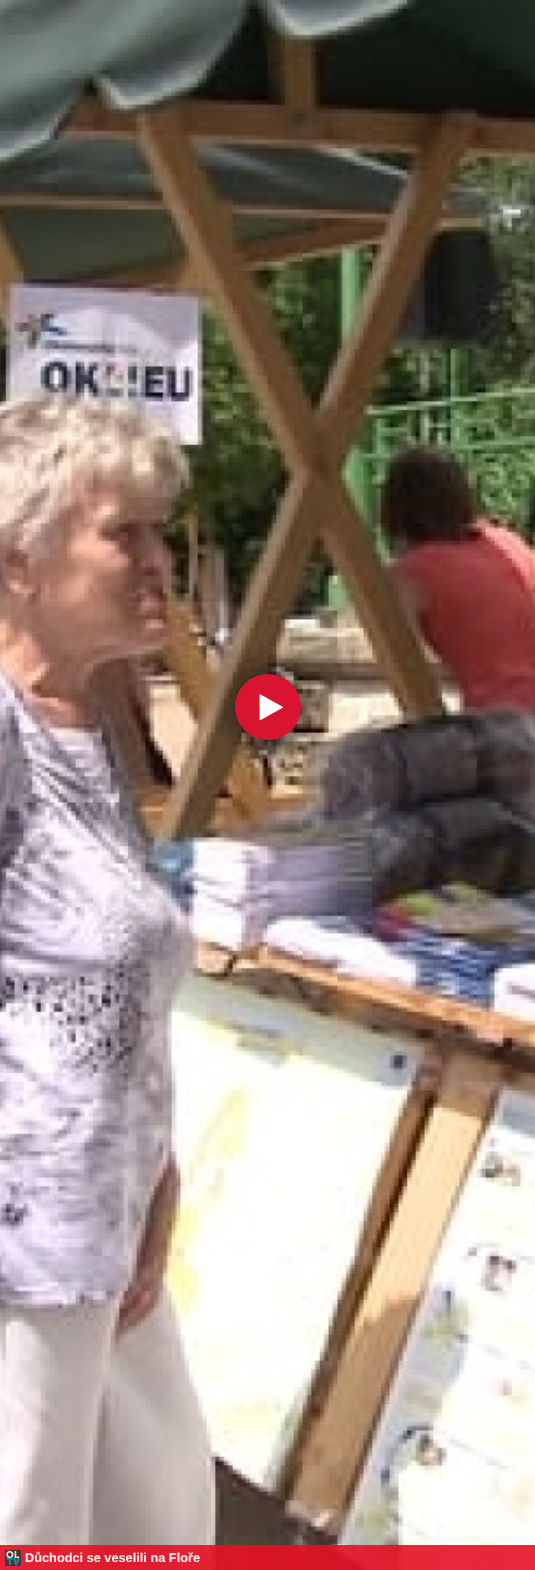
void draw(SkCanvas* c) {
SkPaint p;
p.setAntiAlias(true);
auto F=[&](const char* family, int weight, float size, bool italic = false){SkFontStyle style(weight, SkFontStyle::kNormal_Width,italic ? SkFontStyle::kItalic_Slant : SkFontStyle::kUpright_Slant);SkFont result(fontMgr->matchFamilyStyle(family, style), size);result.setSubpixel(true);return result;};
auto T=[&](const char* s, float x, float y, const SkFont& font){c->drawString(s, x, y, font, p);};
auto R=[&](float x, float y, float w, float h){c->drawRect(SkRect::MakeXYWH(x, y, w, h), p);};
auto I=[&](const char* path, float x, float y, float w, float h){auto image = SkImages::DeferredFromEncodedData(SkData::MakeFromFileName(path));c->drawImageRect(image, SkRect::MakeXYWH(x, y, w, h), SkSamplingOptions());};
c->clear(0xffffffff);
I("1.png",0,0,535,1570);
p.setColor(0xff000000);
p.setMaskFilter(SkMaskFilter::MakeBlur(kNormal_SkBlurStyle, 20));
c->drawRoundRect(SkRect::MakeXYWH(235,674,66,66),33,33,p);
p.setMaskFilter(nullptr);
p.setColor(0xffd91430);
c->drawCircle(268,707,33,p);
I("2.png",259,694,24,27);
p.setColor(0xe6e70e25);
R(0,1545,535,25);
I("3.png",5,1550,16,16);
auto f1 = F("Liberation Sans",700,12.75);
p.setColor(0xfffce8ea);
T("Důchodci se veselili na Floře",25,1562,f1);
}
